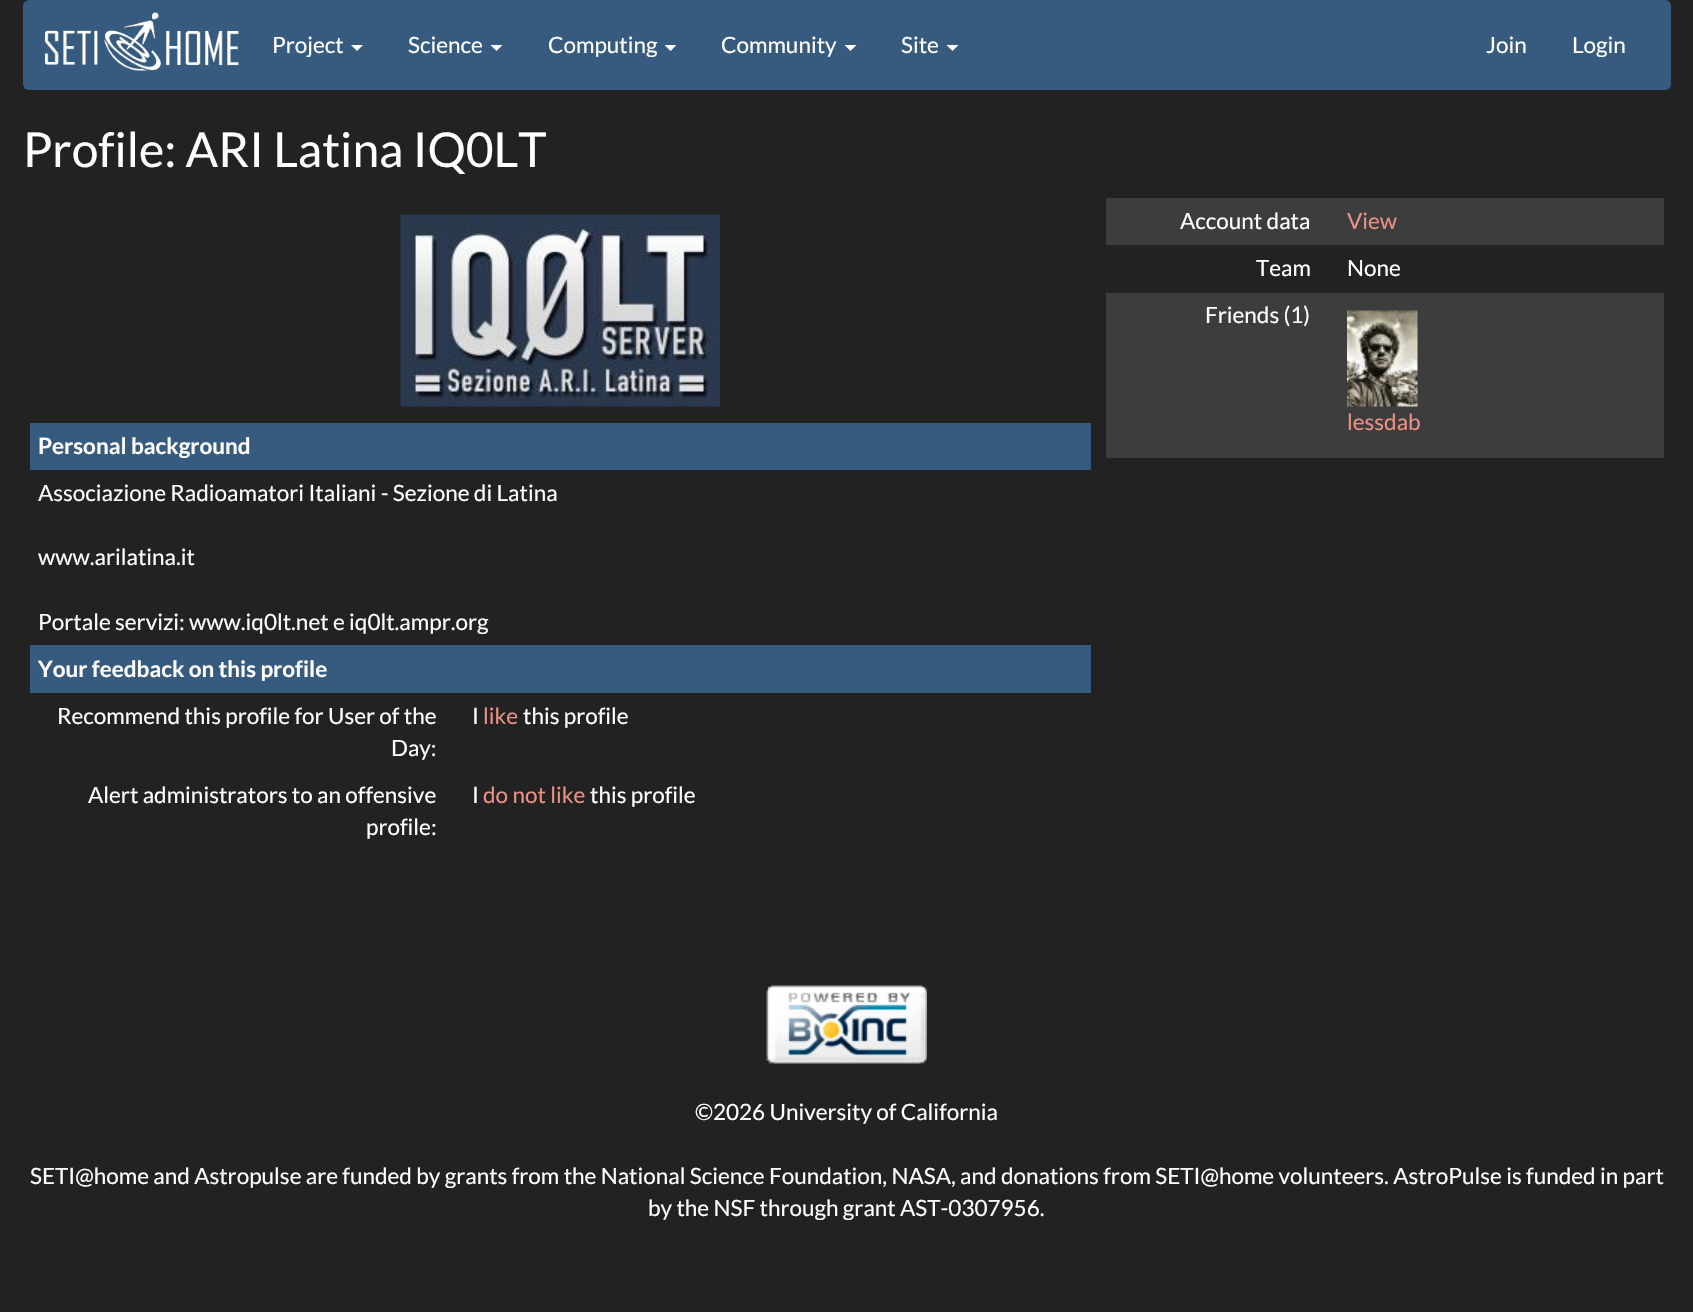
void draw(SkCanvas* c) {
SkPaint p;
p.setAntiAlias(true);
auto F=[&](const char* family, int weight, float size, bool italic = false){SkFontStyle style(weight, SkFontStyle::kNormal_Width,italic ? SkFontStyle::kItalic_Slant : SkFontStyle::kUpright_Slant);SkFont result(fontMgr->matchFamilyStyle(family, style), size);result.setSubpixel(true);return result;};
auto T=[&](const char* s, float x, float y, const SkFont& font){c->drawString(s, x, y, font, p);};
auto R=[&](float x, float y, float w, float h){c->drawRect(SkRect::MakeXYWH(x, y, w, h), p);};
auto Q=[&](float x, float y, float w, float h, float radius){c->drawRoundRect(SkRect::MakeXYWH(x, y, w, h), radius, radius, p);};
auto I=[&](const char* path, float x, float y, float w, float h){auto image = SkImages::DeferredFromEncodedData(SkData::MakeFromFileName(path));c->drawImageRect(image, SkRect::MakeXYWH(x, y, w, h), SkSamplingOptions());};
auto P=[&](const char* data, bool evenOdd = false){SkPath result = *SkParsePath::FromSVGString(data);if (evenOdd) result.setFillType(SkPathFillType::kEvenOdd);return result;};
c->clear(0xff222222);
p.setColor(0xff375a7f);
Q(23,0,1648,90,6);
I("1.png",45,12,194,59);
auto f1 = F("Lato",400,22.5);
p.setColor(0xffffffff);
T("Project",272,53,f1);
c->drawPath(P("M351 45h12l-6 6z"),p);
T("Science",408,53,f1);
c->drawPath(P("M490.5 45h12l-6 6z"),p);
T("Computing",548,53,f1);
c->drawPath(P("M664.5 45h12l-6 6z"),p);
T("Community",721,53,f1);
c->drawPath(P("M844.5 45h12l-6 6z"),p);
T("Site",901,53,f1);
c->drawPath(P("M946.5 45h12l-6 6z"),p);
T("Join",1486,53,f1);
T("Login",1572,53,f1);
auto f2 = F("Lato",400,48);
T("Profile: ARI Latina IQ0LT",23,167,f2);
p.setColor(0xff3d3d3d);
R(1106,198,558,47);
p.setColor(0xffffffff);
T("Account data",1180,229,f1);
p.setColor(0xffea9185);
T("View",1347,229,f1);
p.setColor(0xffffffff);
T("Team",1256,276,f1);
T("None",1347,276,f1);
p.setColor(0xff3d3d3d);
R(1106,293,558,165);
p.setColor(0xffffffff);
T("Friends (1)",1205,323,f1);
I("2.png",1347,310,71,97);
p.setColor(0xffea9185);
T("lessdab",1347,430,f1);
I("3.png",400,214,320,193);
p.setColor(0xff375a7f);
R(30,423,1061,47);
auto f3 = F("Lato",700,22.5);
p.setColor(0xffffffff);
T("Personal background",38,454,f3);
T("Associazione Radioamatori Italiani - Sezione di Latina",38,501,f1);
T("www.arilatina.it",38,565,f1);
T("Portale servizi: www.iq0lt.net e iq0lt.ampr.org",38,630,f1);
p.setColor(0xff375a7f);
R(30,645,1061,48);
p.setColor(0xffffffff);
T("Your feedback on this profile",38,677,f3);
T("Recommend this profile for User of the",57,724,f1);
T("Day:",391,756,f1);
T("I",472,724,f1);
p.setColor(0xffea9185);
T("like",483,724,f1);
p.setColor(0xffffffff);
T("this profile",523,724,f1);
T("Alert administrators to an offensive",88,803,f1);
T("profile:",366,835,f1);
T("I",472,803,f1);
p.setColor(0xffea9185);
T("do not like",483,803,f1);
p.setColor(0xffffffff);
T("this profile",590,803,f1);
I("4.png",766,985,161,79);
T("©2026 University of California",695,1120,f1);
T("SETI@home and Astropulse are funded by grants from the National Science Foundation, NASA, and donations from SETI@home volunteers. AstroPulse is funded in part",30,1184,f1);
T("by the NSF through grant AST-0307956.",648,1216,f1);
}
